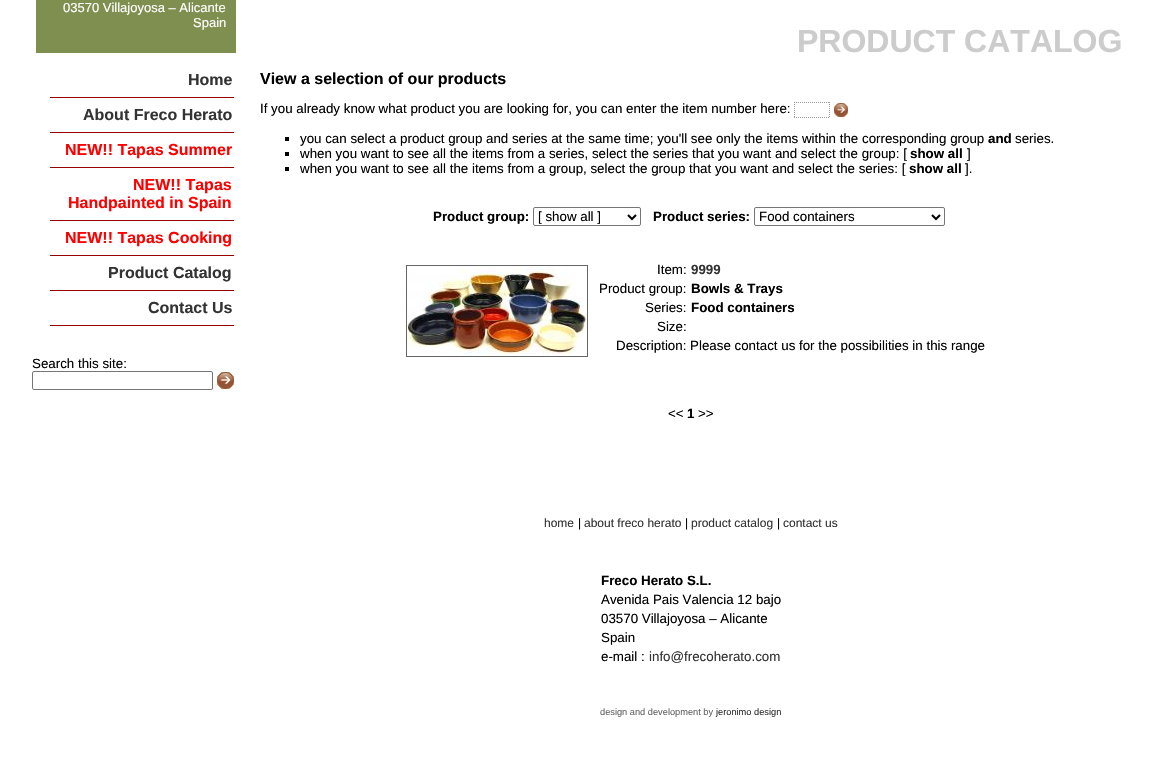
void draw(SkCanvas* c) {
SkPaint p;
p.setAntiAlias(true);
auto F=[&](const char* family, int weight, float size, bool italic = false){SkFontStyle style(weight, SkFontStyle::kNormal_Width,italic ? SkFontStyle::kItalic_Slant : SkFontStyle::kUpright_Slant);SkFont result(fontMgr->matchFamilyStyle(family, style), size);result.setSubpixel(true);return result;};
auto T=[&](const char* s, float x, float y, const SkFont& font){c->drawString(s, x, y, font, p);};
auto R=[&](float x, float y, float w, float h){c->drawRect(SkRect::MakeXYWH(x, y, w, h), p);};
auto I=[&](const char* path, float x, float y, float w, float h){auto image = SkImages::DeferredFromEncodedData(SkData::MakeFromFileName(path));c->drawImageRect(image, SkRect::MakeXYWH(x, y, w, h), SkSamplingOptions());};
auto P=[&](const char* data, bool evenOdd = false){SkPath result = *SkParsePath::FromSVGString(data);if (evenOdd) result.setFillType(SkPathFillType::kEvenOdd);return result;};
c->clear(0xffffffff);
p.setColor(0xff7f8f50);
R(36,0,200,53);
auto f1 = F("Liberation Sans",400,13);
p.setColor(0xffffffff);
T("03570 Villajoyosa – Alicante",63,12,f1);
T("Spain",193,27,f1);
auto f2 = F("Liberation Sans",700,32);
p.setColor(0xffcccccc);
T("PRODUCT CATALOG",797,52,f2);
p.setColor(0xff990000);
R(50,97,184,1);
auto f3 = F("Liberation Sans",700,16);
p.setColor(0xff333333);
T("Home",188,85,f3);
p.setColor(0xff990000);
R(50,132,184,1);
p.setColor(0xff333333);
T("About Freco Herato",83,120,f3);
p.setColor(0xff990000);
R(50,167,184,1);
p.setColor(0xffff0000);
T("NEW!! Tapas Summer",65,155,f3);
p.setColor(0xff990000);
R(50,220,184,1);
p.setColor(0xffff0000);
T("NEW!! Tapas",133,190,f3);
T("Handpainted in Spain",68,208,f3);
p.setColor(0xff990000);
R(50,255,184,1);
p.setColor(0xffff0000);
T("NEW!! Tapas Cooking",65,243,f3);
p.setColor(0xff990000);
R(50,290,184,1);
p.setColor(0xff333333);
T("Product Catalog",108,278,f3);
p.setColor(0xff990000);
R(50,325,184,1);
p.setColor(0xff333333);
T("Contact Us",148,313,f3);
auto f4 = F("Liberation Sans",400,13.33);
p.setColor(0xff000000);
T("Search this site:",32,368,f4);
p.setStroke(true);
p.setStrokeWidth(1);
p.setColor(0xff767676);
c->drawRoundRect(SkRect::MakeXYWH(32.5,371.5,180,18),1.5,1.5,p);
I("1.png",217,372,17,17);
p.setStroke(false);
p.setColor(0xff000000);
T("View a selection of our products",260,84,f3);
T("If you already know what product you are looking for, you can enter the item number here:",260,113,f4);
p.setStroke(true);
p.setColor(0xff999999);
p.setPathEffect(SkDashPathEffect::Make({{1,1}}, 0));
c->drawPath(P("M794 102.5h36m-.5-.5v16m-35.5-.5h36m-35.5-15.5v16"),p);
p.setPathEffect(nullptr);
I("2.png",834,103,14,14);
p.setStroke(false);
p.setColor(0xff000000);
R(285,137,4,4);
T("you can select a product group and series at the same time; you'll see only the items within the corresponding group",300,143,f4);
auto f5 = F("Liberation Sans",700,13.33);
T("and",988,143,f5);
T("series.",1015,143,f4);
R(285,152,4,4);
T("when you want to see all the items from a series, select the series that you want and select the group: [",300,158,f4);
T("show all",910,158,f5);
T("]",967,158,f4);
R(285,167,4,4);
T("when you want to see all the items from a group, select the group that you want and select the series: [",300,173,f4);
T("show all",909,173,f5);
T("].",965,173,f4);
T("Product group:",433,221,f5);
p.setStroke(true);
p.setColor(0xff767676);
c->drawRoundRect(SkRect::MakeXYWH(533.5,207.5,107,18),1.5,1.5,p);
p.setStrokeWidth(2);
p.setColor(0xff000000);
c->drawPath(P("M628 215l4 4l4-4"),p);
p.setStroke(false);
T("[ show all ]",538,221,f4);
T("Product series:",653,221,f5);
p.setStroke(true);
p.setStrokeWidth(1);
p.setColor(0xff767676);
c->drawRoundRect(SkRect::MakeXYWH(754.5,207.5,190,18),1.5,1.5,p);
p.setStrokeWidth(2);
p.setColor(0xff000000);
c->drawPath(P("M932 215l4 4l4-4"),p);
p.setStroke(false);
T("Food containers",759,221,f4);
p.setStroke(true);
p.setStrokeWidth(1);
p.setColor(0xff666666);
c->drawRect(SkRect::MakeXYWH(406.5,265.5,181,91),p);
I("3.png",407,266,180,90);
p.setStroke(false);
p.setColor(0xff000000);
T("Item:",657,274,f4);
p.setColor(0xff333333);
T("9999",691,274,f5);
p.setColor(0xff000000);
T("Product group:",599,293,f4);
T("Bowls & Trays",691,293,f5);
T("Series:",645,312,f4);
T("Food containers",691,312,f5);
T("Size:",657,331,f4);
T("Description: Please contact us for the possibilities in this range",616,350,f4);
T("<<",668,418,f4);
T("1",687,418,f5);
T(">>",698,418,f4);
auto f6 = F("Liberation Sans",400,12);
p.setColor(0xff333333);
T("home",544,527,f6);
p.setColor(0xff000000);
T("|",578,527,f6);
p.setColor(0xff333333);
T("about freco herato",584,527,f6);
p.setColor(0xff000000);
T("|",685,527,f6);
p.setColor(0xff333333);
T("product catalog",691,527,f6);
p.setColor(0xff000000);
T("|",777,527,f6);
p.setColor(0xff333333);
T("contact us",783,527,f6);
p.setColor(0xff000000);
T("Freco Herato S.L.",601,585,f5);
T("Avenida Pais Valencia 12 bajo",601,604,f4);
T("03570 Villajoyosa – Alicante",601,623,f4);
T("Spain",601,642,f4);
T("e-mail :",601,661,f4);
p.setColor(0xff333333);
T("info@frecoherato.com",649,661,f4);
auto f7 = F("Liberation Sans",400,9.25);
p.setColor(0xff666666);
T("design and development by",600,715,f7);
p.setColor(0xff333333);
T("jeronimo design",716,715,f7);
}
